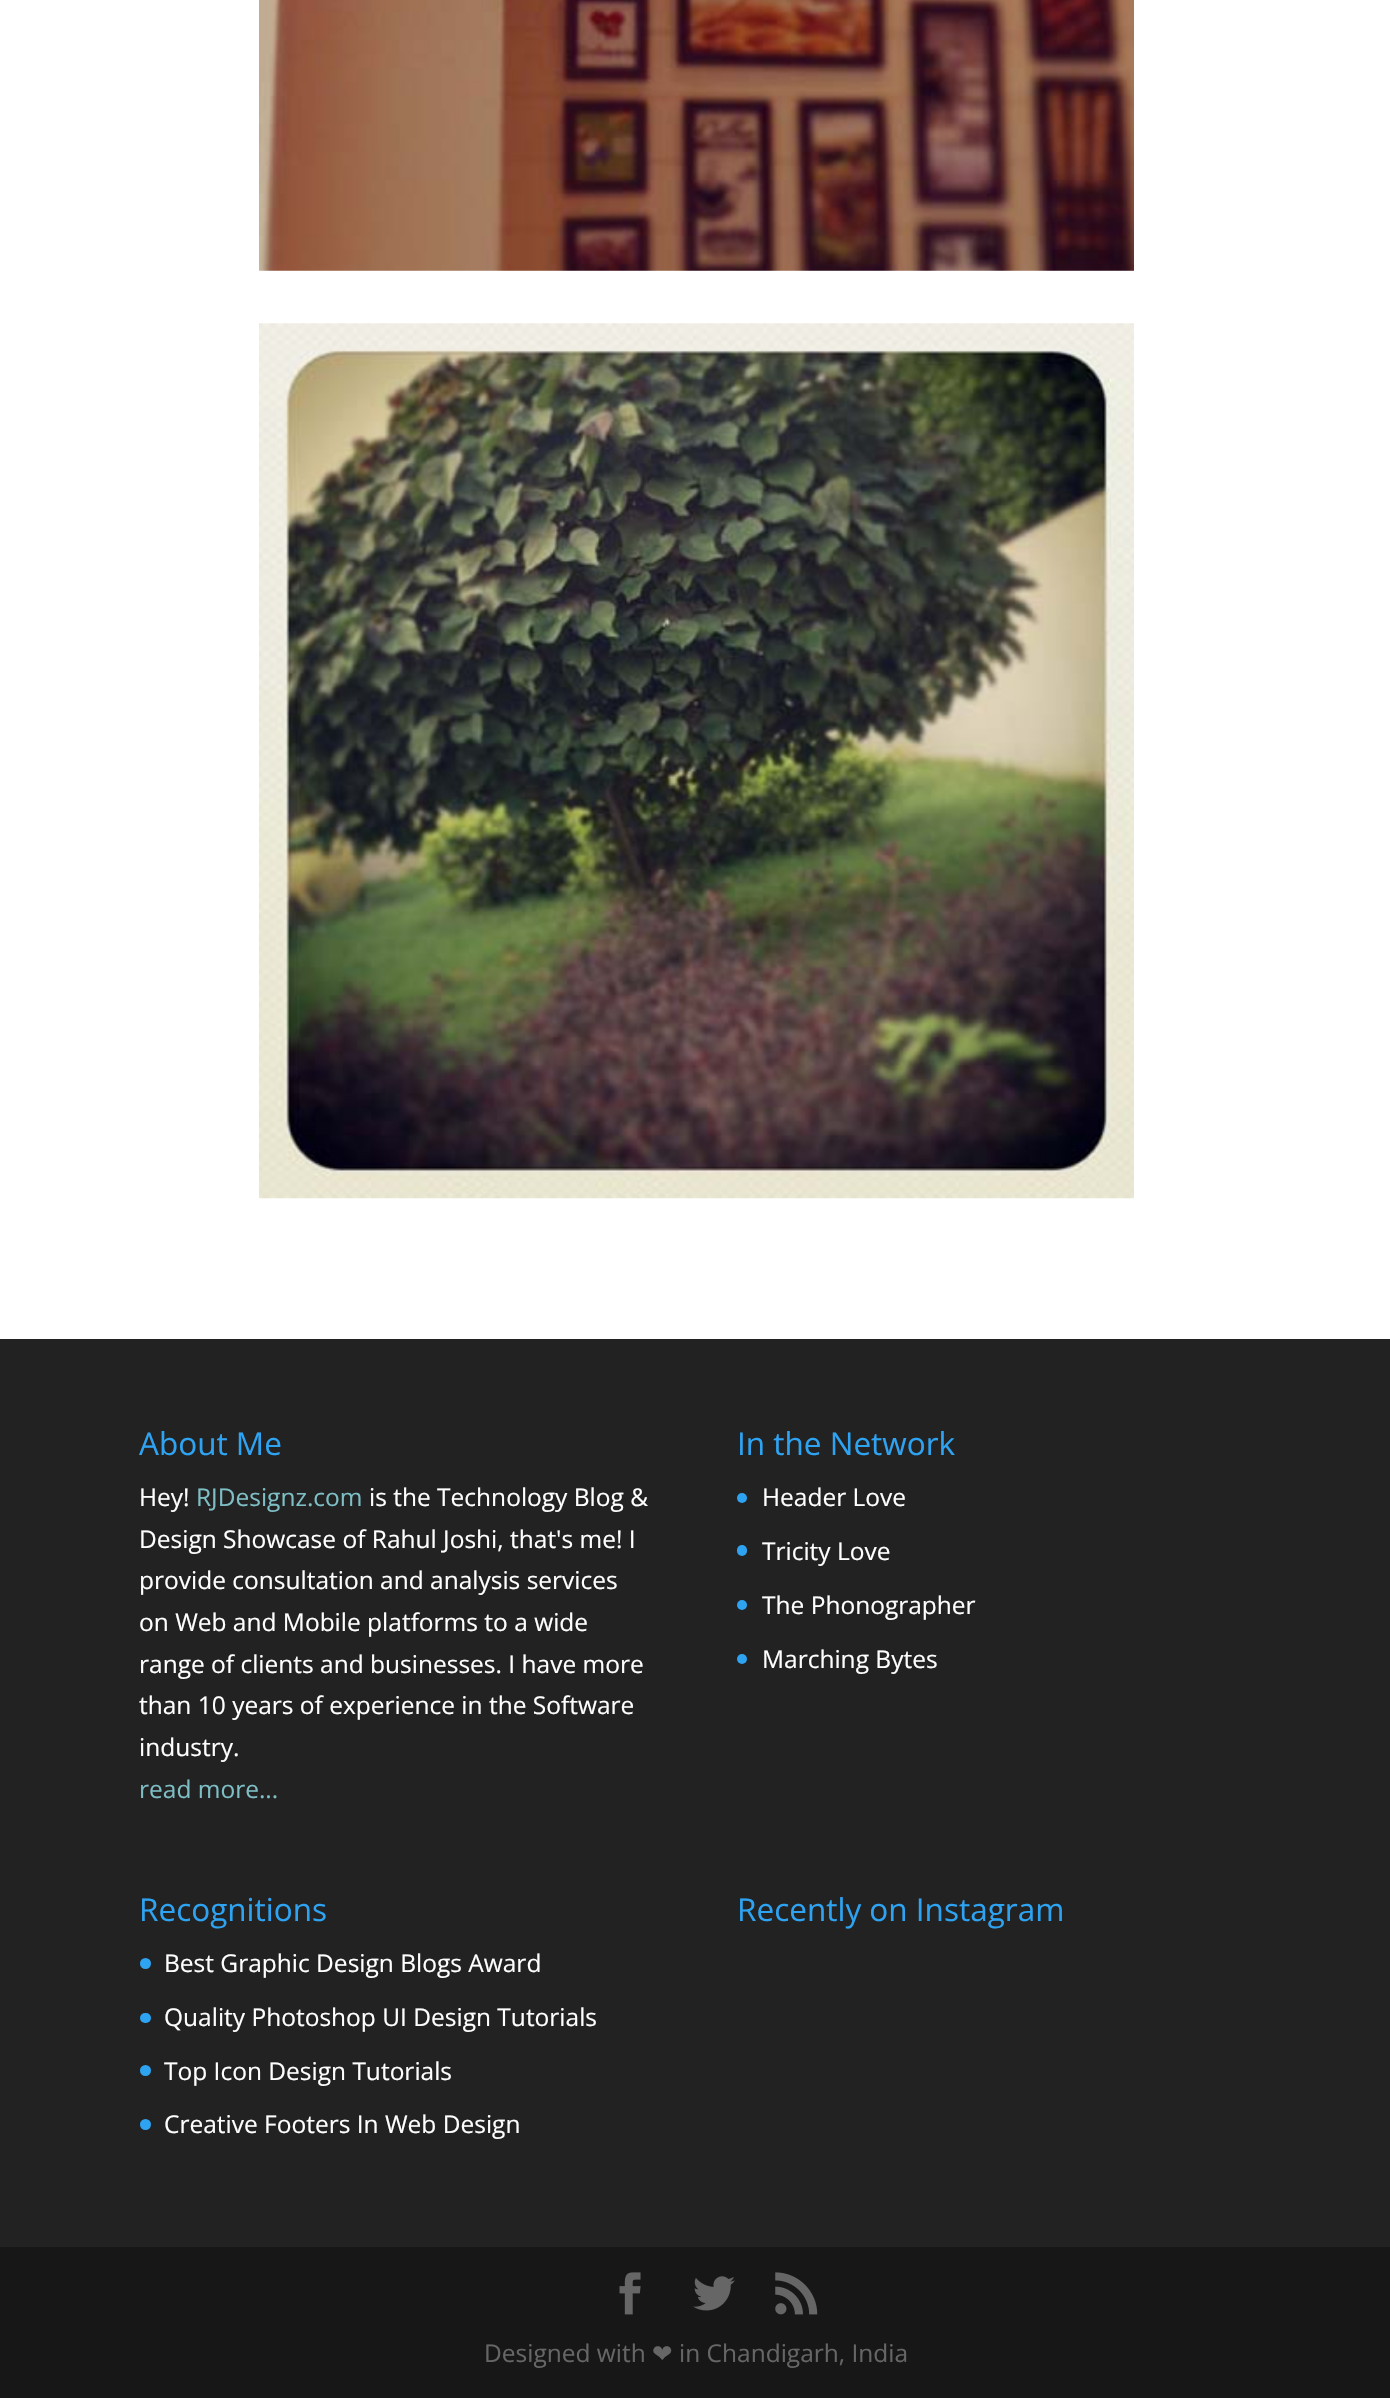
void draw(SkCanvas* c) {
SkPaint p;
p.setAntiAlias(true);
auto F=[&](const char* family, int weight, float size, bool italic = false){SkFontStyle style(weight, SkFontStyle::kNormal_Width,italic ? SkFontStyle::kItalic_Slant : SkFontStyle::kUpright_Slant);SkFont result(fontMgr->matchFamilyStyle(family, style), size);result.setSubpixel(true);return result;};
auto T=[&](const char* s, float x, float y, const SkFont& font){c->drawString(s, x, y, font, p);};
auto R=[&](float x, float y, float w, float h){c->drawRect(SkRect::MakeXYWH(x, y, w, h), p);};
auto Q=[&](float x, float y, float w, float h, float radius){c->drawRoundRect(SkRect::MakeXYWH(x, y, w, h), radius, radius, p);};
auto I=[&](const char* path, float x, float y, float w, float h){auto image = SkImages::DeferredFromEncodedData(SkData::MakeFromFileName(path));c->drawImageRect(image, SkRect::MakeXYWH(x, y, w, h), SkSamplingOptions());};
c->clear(0xffffffff);
I("1.png",259,0,875,271);
I("2.png",259,323,875,876);
p.setColor(0xff222222);
R(0,1339,1390,908);
auto f1 = F("Open Sans",400,31.5);
p.setColor(0xff2ea3f2);
T("About Me",139,1455,f1);
auto f2 = F("Open Sans",400,24.5);
p.setColor(0xffffffff);
T("Hey!",139,1506,f2);
p.setColor(0xff7ebec5);
T("RJDesignz.com",196,1506,f2);
p.setColor(0xffffffff);
T("is the Technology Blog &",369,1506,f2);
T("Design Showcase of Rahul Joshi, that's me! I",139,1548,f2);
T("provide consultation and analysis services",139,1589,f2);
T("on Web and Mobile platforms to a wide",139,1631,f2);
T("range of clients and businesses. I have more",139,1673,f2);
T("than 10 years of experience in the Software",139,1714,f2);
T("industry.",139,1756,f2);
p.setColor(0xff7ebec5);
T("read more...",139,1798,f2);
p.setColor(0xff2ea3f2);
T("In the Network",737,1455,f1);
c->drawCircle(742,1498,5,p);
p.setColor(0xffffffff);
T("Header Love",762,1506,f2);
p.setColor(0xff2ea3f2);
Q(737,1545,10,11,5);
p.setColor(0xffffffff);
T("Tricity Love",762,1560,f2);
p.setColor(0xff2ea3f2);
c->drawCircle(742,1605,5,p);
p.setColor(0xffffffff);
T("The Phonographer",762,1614,f2);
p.setColor(0xff2ea3f2);
c->drawCircle(742,1659,5,p);
p.setColor(0xffffffff);
T("Marching Bytes",762,1668,f2);
p.setColor(0xff2ea3f2);
T("Recognitions",139,1921,f1);
c->drawCircle(145.5,1963.5,5.5,p);
p.setColor(0xffffffff);
T("Best Graphic Design Blogs Award",164,1972,f2);
p.setColor(0xff2ea3f2);
Q(140,2013,11,10,5);
p.setColor(0xffffffff);
T("Quality Photoshop UI Design Tutorials",164,2026,f2);
p.setColor(0xff2ea3f2);
c->drawCircle(145.5,2070.5,5.5,p);
p.setColor(0xffffffff);
T("Top Icon Design Tutorials",164,2080,f2);
p.setColor(0xff2ea3f2);
c->drawCircle(145.5,2124.5,5.5,p);
p.setColor(0xffffffff);
T("Creative Footers In Web Design",164,2133,f2);
p.setColor(0xff2ea3f2);
T("Recently on Instagram",737,1921,f1);
p.setColor(0xff171717);
R(0,2247,1390,151);
I("3.png",619,2272,22,43);
I("4.png",693,2276,42,35);
I("5.png",775,2272,43,43);
p.setColor(0xff666666);
T("Designed with",484,2362,f2);
auto f3 = F("DejaVu Sans",400,24.5);
T("❤",652,2362,f3);
T("in Chandigarh, India",679,2362,f2);
}
